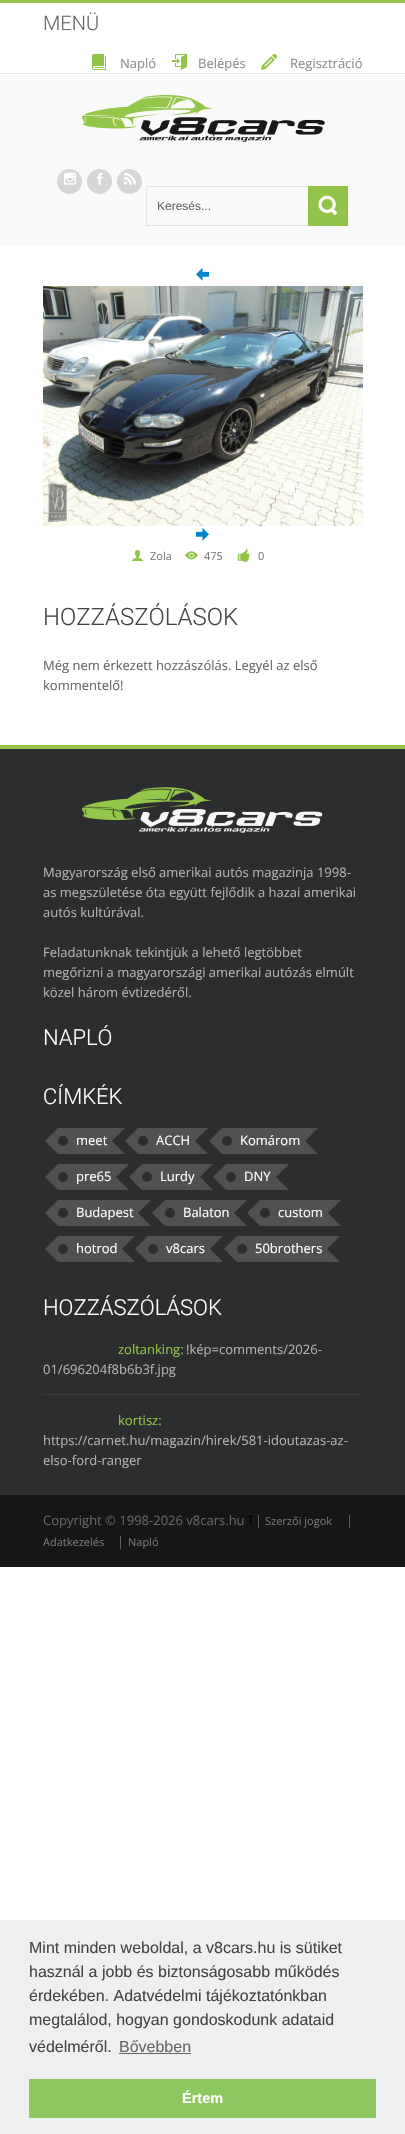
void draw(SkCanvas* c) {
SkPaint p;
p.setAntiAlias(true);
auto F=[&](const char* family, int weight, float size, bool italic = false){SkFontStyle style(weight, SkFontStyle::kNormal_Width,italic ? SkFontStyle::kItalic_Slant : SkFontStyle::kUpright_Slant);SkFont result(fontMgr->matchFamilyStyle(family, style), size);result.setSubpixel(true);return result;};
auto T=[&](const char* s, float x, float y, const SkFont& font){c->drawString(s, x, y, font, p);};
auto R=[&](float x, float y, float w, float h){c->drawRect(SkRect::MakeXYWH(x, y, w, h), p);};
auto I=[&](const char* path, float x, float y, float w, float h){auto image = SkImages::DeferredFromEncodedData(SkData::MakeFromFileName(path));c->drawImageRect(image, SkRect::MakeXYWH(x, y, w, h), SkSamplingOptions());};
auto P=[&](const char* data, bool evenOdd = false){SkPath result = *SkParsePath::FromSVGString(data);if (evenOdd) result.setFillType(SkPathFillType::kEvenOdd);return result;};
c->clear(0xffffffff);
p.setColor(0xff91c448);
R(0,0,405,3);
p.setColor(0xffe5e5e5);
R(0,73,405,1);
auto f1 = F("Roboto",300,20);
p.setColor(0xff666666);
T("MENÜ",43,30,f1);
I("1.png",92,54,14,16);
auto f2 = F("Open Sans",400,13);
p.setColor(0xff8d8d8d);
T("Napló",120,68,f2);
I("2.png",172,54,15,16);
T("Belépés",198,68,f2);
I("3.png",261,54,16,16);
T("Regisztráció",290,68,f2);
p.setColor(0xfffafafa);
R(0,74,405,172);
I("4.png",82,94,243,48);
p.setColor(0xffd6d6d6);
c->drawCircle(69.5,181.5,12.5,p);
I("5.png",64,172,12,13);
c->drawCircle(99.5,181.5,12.5,p);
I("6.png",97,172,6,13);
c->drawCircle(129.5,181.5,12.5,p);
I("7.png",124,172,12,13);
p.setStroke(true);
p.setStrokeWidth(1);
p.setColor(0xffe4e4e4);
c->drawRect(SkRect::MakeXYWH(146.5,186.5,201,39),p);
auto f3 = F("Liberation Sans",400,12);
p.setStroke(false);
p.setColor(0xff666666);
T("Keresés...",157,210,f3);
p.setColor(0xff91c448);
R(308,186,40,40);
I("8.png",318,195,20,21);
I("9.png",196,268,13,13);
I("10.png",43,286,320,240);
I("11.png",196,528,13,13);
I("12.png",131,550,13,11);
auto f4 = F("Open Sans",400,11);
p.setColor(0xff777777);
T("Zola",150,560,f4);
I("13.png",185,551,13,9);
T("475",204,560,f4);
I("14.png",237,548,13,14);
T("0",258,560,f4);
auto f5 = F("Roboto",300,24);
p.setColor(0xff444444);
T("HOZZÁSZÓLÁSOK",43,625,f5);
p.setColor(0xff666666);
T("Még nem érkezett hozzászólás. Legyél az első",43,670,f2);
T("kommentelő!",43,690,f2);
p.setColor(0xff2c2d2e);
R(0,749,405,746);
p.setColor(0xff91c448);
R(0,745,405,4);
I("15.png",81,787,242,46);
p.setColor(0xffb2b2b2);
T("Magyarország első amerikai autós magazinja 1998-",43,877,f2);
T("as megszületése óta együtt fejlődik a hazai amerikai",43,897,f2);
T("autós kultúrával.",43,917,f2);
T("Feladatunknak tekintjük a lehető legtöbbet",43,957,f2);
T("megőrizni a magyarországi amerikai autózás elmúlt",43,977,f2);
T("közel három évtizedéről.",43,997,f2);
auto f6 = F("Roboto",300,22);
p.setColor(0xffffffff);
T("NAPLÓ",43,1045,f6);
T("CÍMKÉK",43,1104,f6);
p.setColor(0xff515151);
R(58,1128,67,26);
c->drawPath(P("M58 1128v26l-13-13z"),p);
p.setColor(0xff2c2d2e);
c->drawCircle(63,1141,5,p);
p.setColor(0xffffffff);
T("meet",76,1145,f2);
p.setColor(0xff2c2d2e);
c->drawPath(P("M125 1128v26l-13-13z"),p);
p.setColor(0xff515151);
R(138,1128,70,26);
c->drawPath(P("M138 1128v26l-13-13z"),p);
p.setColor(0xff2c2d2e);
c->drawCircle(143,1141,5,p);
p.setColor(0xffffffff);
T("ACCH",156,1145,f2);
p.setColor(0xff2c2d2e);
c->drawPath(P("M208 1128v26l-13-13z"),p);
p.setColor(0xff515151);
R(222,1128,96,26);
c->drawPath(P("M222 1128v26l-13-13z"),p);
p.setColor(0xff2c2d2e);
c->drawCircle(227,1141,5,p);
p.setColor(0xffffffff);
T("Komárom",240,1145,f2);
p.setColor(0xff2c2d2e);
c->drawPath(P("M318 1128v26l-13-13z"),p);
p.setColor(0xff515151);
R(58,1164,71,26);
c->drawPath(P("M58 1164v26l-13-13z"),p);
p.setColor(0xff2c2d2e);
c->drawCircle(63,1177,5,p);
p.setColor(0xffffffff);
T("pre65",76,1181,f2);
p.setColor(0xff2c2d2e);
c->drawPath(P("M129 1164v26l-13-13z"),p);
p.setColor(0xff515151);
R(142,1164,71,26);
c->drawPath(P("M142 1164v26l-13-13z"),p);
p.setColor(0xff2c2d2e);
c->drawCircle(147,1177,5,p);
p.setColor(0xffffffff);
T("Lurdy",160,1181,f2);
p.setColor(0xff2c2d2e);
c->drawPath(P("M213 1164v26l-13-13z"),p);
p.setColor(0xff515151);
R(226,1164,63,26);
c->drawPath(P("M226 1164v26l-13-13z"),p);
p.setColor(0xff2c2d2e);
c->drawCircle(231,1177,5,p);
p.setColor(0xffffffff);
T("DNY",244,1181,f2);
p.setColor(0xff2c2d2e);
c->drawPath(P("M289 1164v26l-13-13z"),p);
p.setColor(0xff515151);
R(58,1200,93,26);
c->drawPath(P("M58 1200v26l-13-13z"),p);
p.setColor(0xff2c2d2e);
c->drawCircle(63,1213,5,p);
p.setColor(0xffffffff);
T("Budapest",76,1217,f2);
p.setColor(0xff2c2d2e);
c->drawPath(P("M151 1200v26l-13-13z"),p);
p.setColor(0xff515151);
R(165,1200,82,26);
c->drawPath(P("M165 1200v26l-13-13z"),p);
p.setColor(0xff2c2d2e);
c->drawCircle(170,1213,5,p);
p.setColor(0xffffffff);
T("Balaton",183,1217,f2);
p.setColor(0xff2c2d2e);
c->drawPath(P("M247 1200v26l-13-13z"),p);
p.setColor(0xff515151);
R(260,1200,81,26);
c->drawPath(P("M260 1200v26l-13-13z"),p);
p.setColor(0xff2c2d2e);
c->drawCircle(265,1213,5,p);
p.setColor(0xffffffff);
T("custom",278,1217,f2);
p.setColor(0xff2c2d2e);
c->drawPath(P("M341 1200v26l-13-13z"),p);
p.setColor(0xff515151);
R(58,1236,77,26);
c->drawPath(P("M58 1236v26l-13-13z"),p);
p.setColor(0xff2c2d2e);
c->drawCircle(63,1249,5,p);
p.setColor(0xffffffff);
T("hotrod",76,1253,f2);
p.setColor(0xff2c2d2e);
c->drawPath(P("M135 1236v26l-13-13z"),p);
p.setColor(0xff515151);
R(148,1236,75,26);
c->drawPath(P("M148 1236v26l-13-13z"),p);
p.setColor(0xff2c2d2e);
c->drawCircle(153,1249,5,p);
p.setColor(0xffffffff);
T("v8cars",166,1253,f2);
p.setColor(0xff2c2d2e);
c->drawPath(P("M223 1236v26l-13-13z"),p);
p.setColor(0xff515151);
R(237,1236,103,26);
c->drawPath(P("M237 1236v26l-13-13z"),p);
p.setColor(0xff2c2d2e);
c->drawCircle(242,1249,5,p);
p.setColor(0xffffffff);
T("50brothers",255,1253,f2);
p.setColor(0xff2c2d2e);
c->drawPath(P("M340 1236v26l-13-13z"),p);
p.setColor(0xffffffff);
T("HOZZÁSZÓLÁSOK",43,1315,f6);
p.setColor(0xff3c3c3c);
R(43,1394,320,1);
p.setColor(0xff91c448);
T("zoltanking:",118,1354,f2);
p.setColor(0xffb2b2b2);
T("!kép=comments/2026-",186,1354,f2);
T("01/696204f8b6b3f.jpg",43,1374,f2);
p.setColor(0xff91c448);
T("kortisz:",118,1425,f2);
p.setColor(0xffb2b2b2);
T("https://carnet.hu/magazin/hirek/581-idoutazas-az-",43,1445,f2);
T("elso-ford-ranger",43,1465,f2);
p.setColor(0xff161617);
R(0,1495,405,72);
p.setColor(0xff666666);
T("Copyright © 1998-2026 v8cars.hu",43,1525,f2);
p.setColor(0xff000000);
T("T",247,1525,f2);
p.setColor(0xff666666);
T("|",255,1525,f2);
p.setColor(0xff777777);
T("Szerzői jogok",265,1525,f4);
p.setColor(0xff666666);
T("|",346,1525,f2);
p.setColor(0xff777777);
T("Adatkezelés",43,1546,f4);
p.setColor(0xff666666);
T("|",117,1546,f2);
p.setColor(0xff777777);
T("Napló",128,1546,f4);
p.setColor(0xffefefef);
R(0,1920,405,214);
auto f7 = F("Liberation Sans",400,16);
p.setColor(0xff444444);
T("Mint minden weboldal, a v8cars.hu is sütiket",29,1953,f7);
T("használ a jobb és biztonságosabb működés",29,1977,f7);
T("érdekében. Adatvédelmi tájékoztatónkban",29,2001,f7);
T("megtalálod, hogyan gondoskodunk adataid",29,2025,f7);
T("védelméről.",29,2052,f7);
p.setColor(0xff666666);
T("Bővebben",119,2052,f7);
p.setColor(0xff636363);
R(119,2053,72,1);
p.setColor(0xff8ec760);
R(29,2079,347,39);
auto f8 = F("Liberation Sans",700,14.5);
p.setColor(0xffffffff);
T("Értem",182,2103,f8);
}
